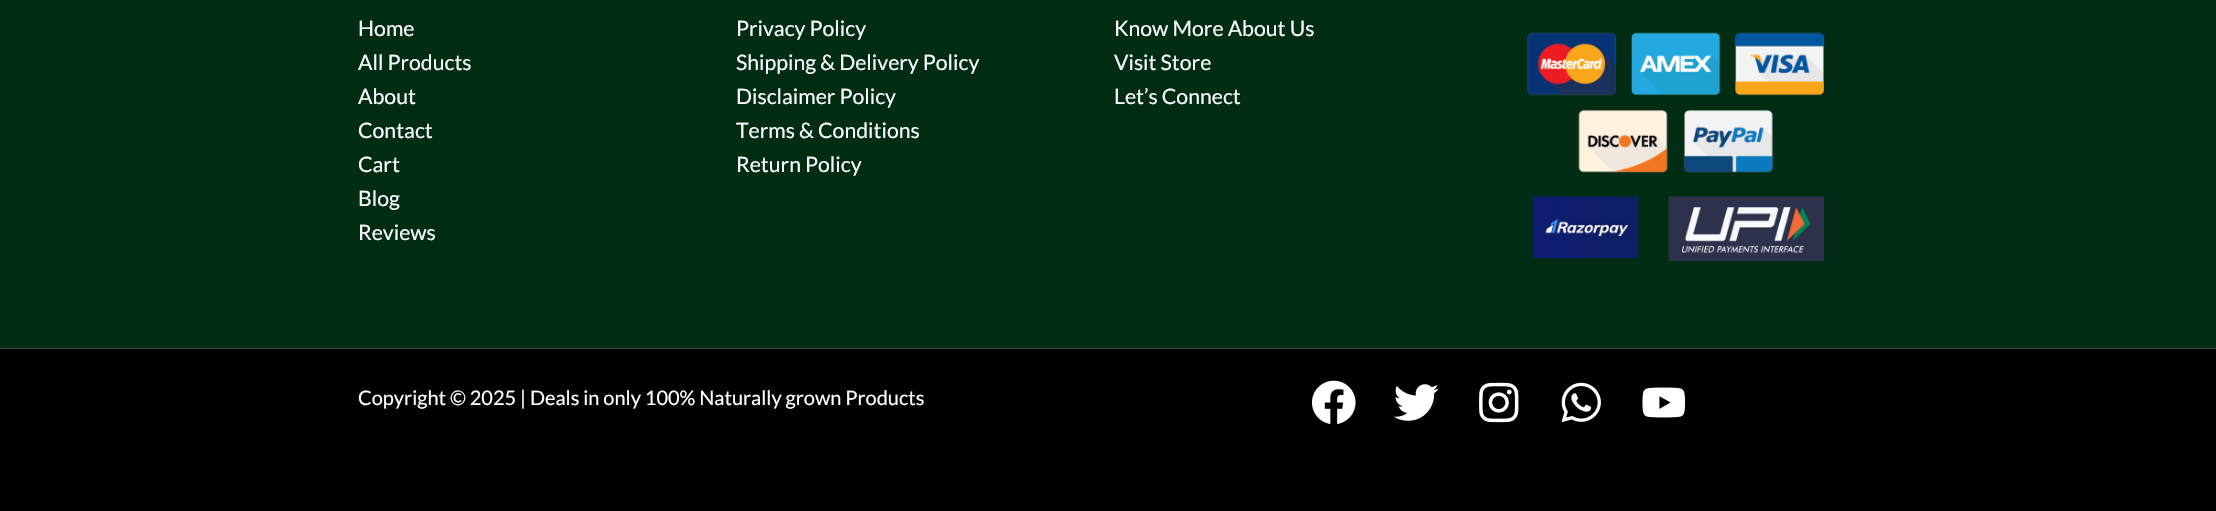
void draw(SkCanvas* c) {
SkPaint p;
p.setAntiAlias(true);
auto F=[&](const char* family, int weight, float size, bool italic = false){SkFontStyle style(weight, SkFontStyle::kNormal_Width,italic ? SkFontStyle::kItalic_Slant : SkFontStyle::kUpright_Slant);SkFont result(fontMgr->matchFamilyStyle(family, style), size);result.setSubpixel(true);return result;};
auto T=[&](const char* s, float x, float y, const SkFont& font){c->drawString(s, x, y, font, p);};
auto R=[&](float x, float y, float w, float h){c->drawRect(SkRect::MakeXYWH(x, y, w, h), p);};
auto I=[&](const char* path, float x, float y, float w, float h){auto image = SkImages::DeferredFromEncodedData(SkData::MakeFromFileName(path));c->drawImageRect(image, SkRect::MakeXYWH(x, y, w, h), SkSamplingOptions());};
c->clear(0xff002d13);
auto f1 = F("Lato",400,21.25);
p.setColor(0xffffffff);
T("Home",358,36,f1);
T("All Products",358,70,f1);
T("About",358,104,f1);
T("Contact",358,138,f1);
T("Cart",358,172,f1);
T("Blog",358,206,f1);
T("Reviews",358,240,f1);
T("Privacy Policy",736,36,f1);
T("Shipping & Delivery Policy",736,70,f1);
T("Disclaimer Policy",736,104,f1);
T("Terms & Conditions",736,138,f1);
T("Return Policy",736,172,f1);
T("Know More About Us",1114,36,f1);
T("Visit Store",1114,70,f1);
T("Let’s Connect",1114,104,f1);
I("1.png",1527,32,297,230);
p.setColor(0xff000000);
R(0,349,2216,162);
p.setColor(0xff3b3b3b);
R(0,348,2216,1);
auto f2 = F("Lato",400,20);
p.setColor(0xffffffff);
T("Copyright © 2025 | Deals in only 100% Naturally grown Products",358,405,f2);
I("2.png",1311,380,45,44);
I("3.png",1394,384,45,37);
I("4.png",1479,382,40,41);
I("5.png",1561,382,40,41);
I("6.png",1642,387,44,31);
}
